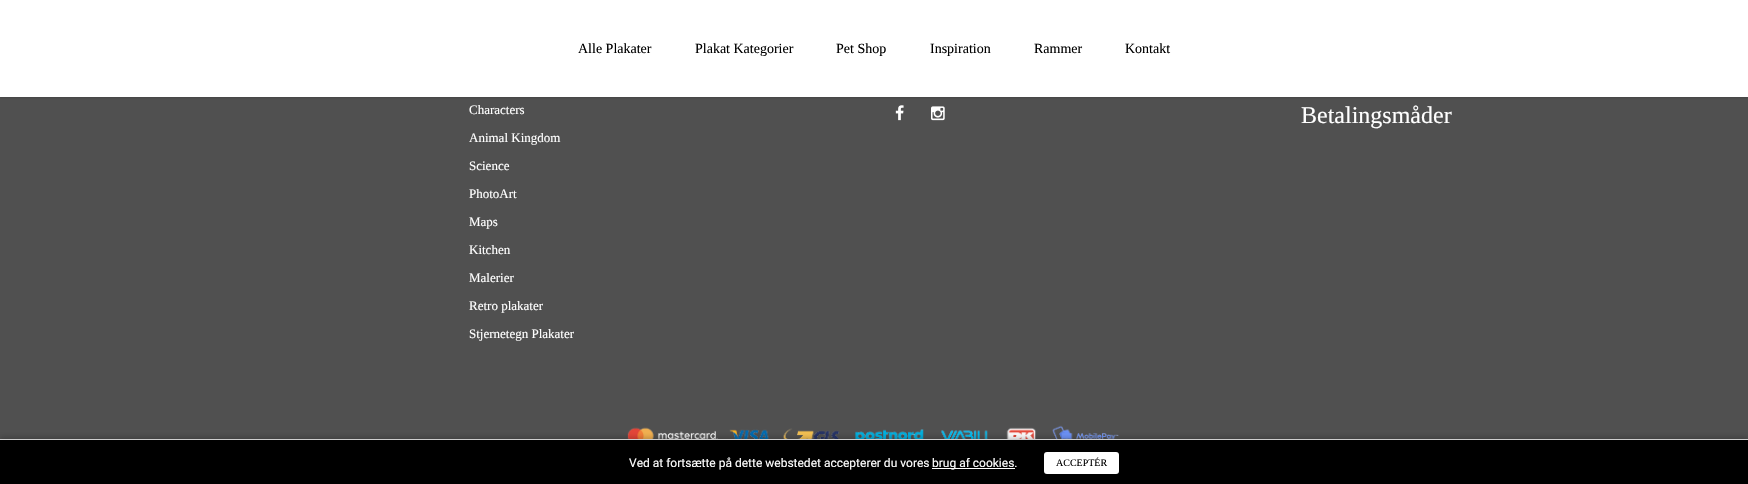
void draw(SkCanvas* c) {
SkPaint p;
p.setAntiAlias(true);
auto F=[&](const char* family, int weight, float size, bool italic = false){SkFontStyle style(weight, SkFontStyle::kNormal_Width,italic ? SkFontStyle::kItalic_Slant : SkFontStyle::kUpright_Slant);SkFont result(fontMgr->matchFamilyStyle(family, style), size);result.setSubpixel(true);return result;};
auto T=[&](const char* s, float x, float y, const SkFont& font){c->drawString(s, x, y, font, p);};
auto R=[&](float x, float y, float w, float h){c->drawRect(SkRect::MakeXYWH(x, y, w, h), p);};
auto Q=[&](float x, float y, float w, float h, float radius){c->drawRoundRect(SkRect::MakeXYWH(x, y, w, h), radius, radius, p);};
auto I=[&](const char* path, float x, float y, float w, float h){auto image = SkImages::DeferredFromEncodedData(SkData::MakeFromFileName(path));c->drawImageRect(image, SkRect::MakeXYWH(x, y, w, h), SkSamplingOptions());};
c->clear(0xff505050);
p.setColor(0x26000000);
p.setMaskFilter(SkMaskFilter::MakeBlur(kNormal_SkBlurStyle, 1));
c->drawRect(SkRect::MakeXYWH(0,1,1748,97),p);
p.setMaskFilter(nullptr);
p.setColor(0xffffffff);
R(0,0,1748,97);
auto f1 = F("Liberation Serif",400,14);
p.setColor(0xff000000);
T("Alle Plakater",578,53,f1);
T("Plakat Kategorier",695,53,f1);
T("Pet Shop",836,53,f1);
T("Inspiration",930,53,f1);
T("Rammer",1034,53,f1);
T("Kontakt",1125,53,f1);
auto f2 = F("Liberation Serif",400,13);
p.setColor(0xffffffff);
T("Characters",469,114,f2);
T("Animal Kingdom",469,142,f2);
T("Science",469,170,f2);
T("PhotoArt",469,198,f2);
T("Maps",469,226,f2);
T("Kitchen",469,254,f2);
T("Malerier",469,282,f2);
T("Retro plakater",469,310,f2);
T("Stjernetegn Plakater",469,338,f2);
I("1.png",895,105,9,16);
I("2.png",931,106,14,15);
auto f3 = F("Liberation Serif",400,24);
T("Betalingsmåder",1301,123,f3);
I("3.png",627,425,492,14);
p.setColor(0x33000000);
p.setMaskFilter(SkMaskFilter::MakeBlur(kNormal_SkBlurStyle, 2.5));
c->drawRect(SkRect::MakeXYWH(0,437,1748,45),p);
p.setMaskFilter(nullptr);
p.setColor(0xff000000);
R(0,440,1748,44);
p.setColor(0xffcecece);
R(0,439,1748,1);
auto f4 = F("Roboto",400,12);
p.setColor(0xffffffff);
T("Ved at fortsætte på dette webstedet accepterer du vores",629,467,f4);
R(932,468,83,1);
T("brug af cookies.",932,467,f4);
Q(1044,452,75,22,3);
auto f5 = F("Liberation Serif",400,10);
p.setColor(0xff000000);
T("ACCEPTÉR",1056,466,f5);
}
